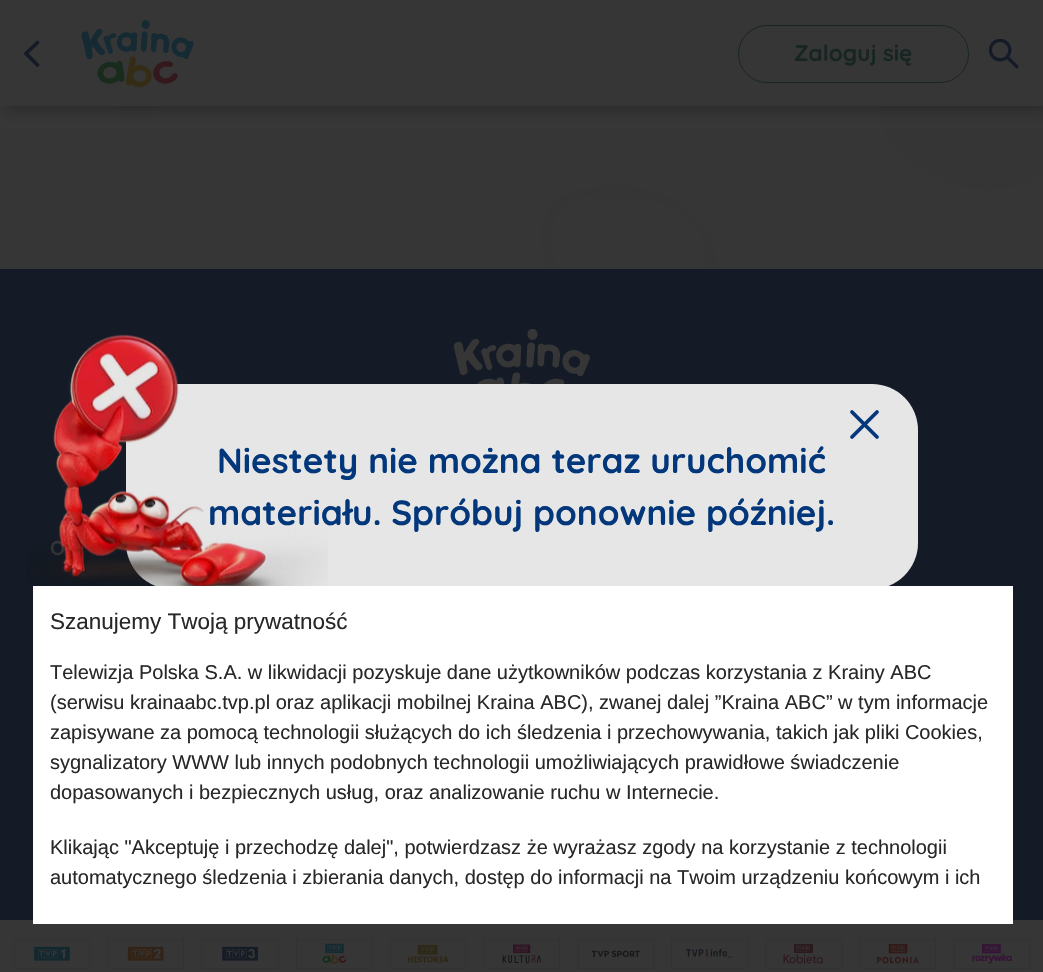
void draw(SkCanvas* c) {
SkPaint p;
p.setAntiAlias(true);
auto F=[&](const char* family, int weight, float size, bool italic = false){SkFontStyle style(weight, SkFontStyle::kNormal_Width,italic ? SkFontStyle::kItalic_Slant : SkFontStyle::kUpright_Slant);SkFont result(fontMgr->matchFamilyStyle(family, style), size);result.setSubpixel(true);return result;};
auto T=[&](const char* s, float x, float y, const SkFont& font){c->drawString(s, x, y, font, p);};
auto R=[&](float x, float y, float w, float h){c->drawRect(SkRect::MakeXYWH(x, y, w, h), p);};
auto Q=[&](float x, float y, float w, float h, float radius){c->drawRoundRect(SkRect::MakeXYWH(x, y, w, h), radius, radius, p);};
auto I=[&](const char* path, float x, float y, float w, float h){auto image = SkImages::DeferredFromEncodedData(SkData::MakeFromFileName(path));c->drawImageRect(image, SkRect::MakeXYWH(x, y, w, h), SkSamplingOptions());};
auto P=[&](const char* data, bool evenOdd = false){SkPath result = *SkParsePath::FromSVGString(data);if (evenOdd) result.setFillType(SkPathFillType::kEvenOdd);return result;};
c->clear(0xff363636);
I("1.png",114,106,929,163);
p.setColor(0x61131313);
p.setMaskFilter(SkMaskFilter::MakeBlur(kNormal_SkBlurStyle, 7));
c->drawRect(SkRect::MakeXYWH(6,3,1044,106),p);
p.setMaskFilter(nullptr);
p.setColor(0xff363636);
R(0,0,1043,106);
p.setStroke(true);
p.setStrokeWidth(3.8);
p.setStrokeCap(SkPaint::kRound_Cap);
p.setColor(0xff141b26);
c->drawPath(P("M37.5 65l-11.5-11.5l11.5-11"),p);
I("2.png",81,20,113,67);
p.setStrokeWidth(1);
p.setStrokeCap(SkPaint::kButt_Cap);
p.setColor(0xff172522);
c->drawRoundRect(SkRect::MakeXYWH(738.5,25.5,230,57),28.5,28.5,p);
auto f1 = F("Quicksand",700,22.5);
p.setStroke(false);
T("Zaloguj się",794,61,f1);
I("3.png",989,39,30,30);
p.setColor(0xff141b26);
R(0,269,1043,651);
p.setColor(0xffe6e6e6);
Q(126,384,792,205,46);
auto f2 = F("Quicksand",700,35);
p.setColor(0xff03377b);
T("Niestety nie można teraz uruchomić",217,473,f2);
T("materiału. Spróbuj ponownie później.",208,525,f2);
auto f3 = F("Quicksand",700,20);
p.setColor(0xff363636);
T("O",50,555,f3);
I("4.png",26,334,302,257);
p.setStroke(true);
p.setStrokeWidth(3.8);
p.setStrokeCap(SkPaint::kRound_Cap);
p.setColor(0xff04377b);
c->drawPath(P("M852 412l25 25m0-25l-25 25"),p);
p.setStroke(false);
p.setColor(0xffffffff);
R(33,586,980,338);
auto f4 = F("Liberation Sans",400,22.5);
p.setColor(0xff282828);
T("Szanujemy Twoją prywatność",50,629,f4);
auto f5 = F("Liberation Sans",400,20);
T("Telewizja Polska S.A. w likwidacji pozyskuje dane użytkowników podczas korzystania z Krainy ABC",50,679,f5);
T("(serwisu krainaabc.tvp.pl oraz aplikacji mobilnej Kraina ABC), zwanej dalej ”Kraina ABC” w tym informacje",50,709,f5);
T("zapisywane za pomocą technologii służących do ich śledzenia i przechowywania, takich jak pliki Cookies,",50,739,f5);
T("sygnalizatory WWW lub innych podobnych technologii umożliwiających prawidłowe świadczenie",50,769,f5);
T("dopasowanych i bezpiecznych usług, oraz analizowanie ruchu w Internecie.",50,799,f5);
T("Klikając \"Akceptuję i przechodzę dalej\", potwierdzasz że wyrażasz zgody na korzystanie z technologii",50,854,f5);
T("automatycznego śledzenia i zbierania danych, dostęp do informacji na Twoim urządzeniu końcowym i ich",50,884,f5);
I("5.png",453,328,137,56);
p.setStroke(true);
p.setStrokeWidth(1);
p.setStrokeCap(SkPaint::kButt_Cap);
p.setColor(0xff323232);
c->drawRect(SkRect::MakeXYWH(14.5,939.5,75,29),p);
I("6.png",34,946,36,15);
c->drawRect(SkRect::MakeXYWH(108.5,939.5,75,29),p);
I("7.png",127,946,37,15);
c->drawRect(SkRect::MakeXYWH(201.5,939.5,77,29),p);
I("8.png",222,946,36,15);
c->drawRect(SkRect::MakeXYWH(296.5,939.5,76,29),p);
I("9.png",322,943,25,21);
c->drawRect(SkRect::MakeXYWH(390.5,939.5,75,29),p);
I("10.png",407,945,42,18);
c->drawRect(SkRect::MakeXYWH(484.5,939.5,75,29),p);
I("11.png",502,944,40,20);
c->drawRect(SkRect::MakeXYWH(578.5,939.5,75,29),p);
I("12.png",591,950,49,8);
c->drawRect(SkRect::MakeXYWH(671.5,939.5,76,29),p);
I("13.png",686,949,47,9);
c->drawRect(SkRect::MakeXYWH(765.5,939.5,77,29),p);
I("14.png",783,944,40,20);
c->drawRect(SkRect::MakeXYWH(860.5,939.5,75,29),p);
I("15.png",876,944,44,20);
c->drawRect(SkRect::MakeXYWH(954.5,939.5,75,29),p);
I("16.png",972,944,40,20);
}
